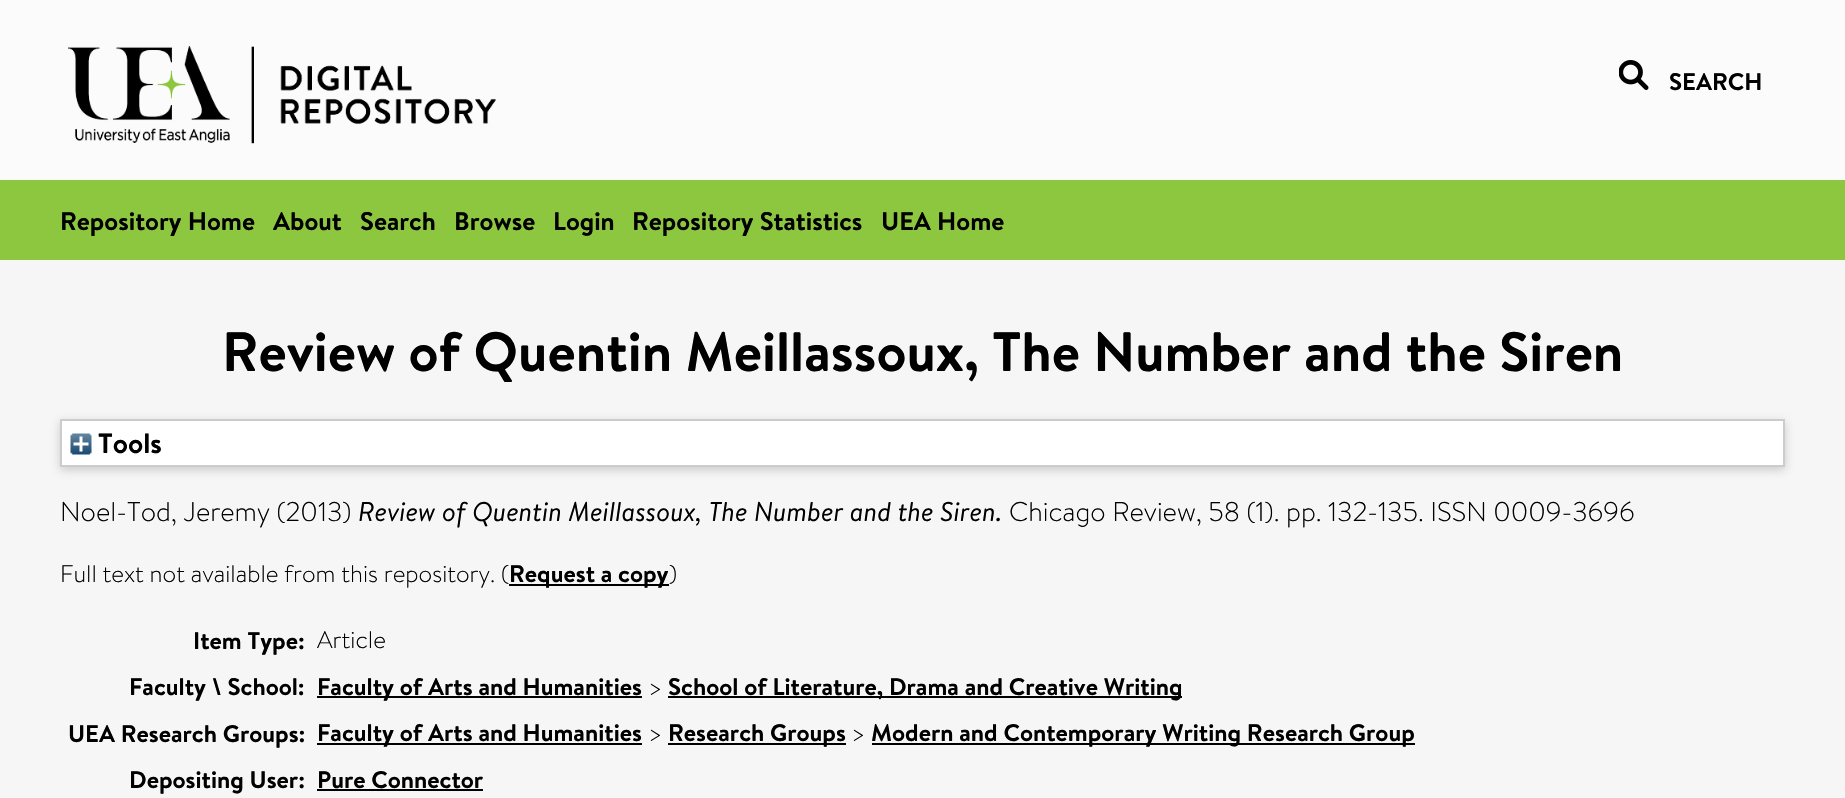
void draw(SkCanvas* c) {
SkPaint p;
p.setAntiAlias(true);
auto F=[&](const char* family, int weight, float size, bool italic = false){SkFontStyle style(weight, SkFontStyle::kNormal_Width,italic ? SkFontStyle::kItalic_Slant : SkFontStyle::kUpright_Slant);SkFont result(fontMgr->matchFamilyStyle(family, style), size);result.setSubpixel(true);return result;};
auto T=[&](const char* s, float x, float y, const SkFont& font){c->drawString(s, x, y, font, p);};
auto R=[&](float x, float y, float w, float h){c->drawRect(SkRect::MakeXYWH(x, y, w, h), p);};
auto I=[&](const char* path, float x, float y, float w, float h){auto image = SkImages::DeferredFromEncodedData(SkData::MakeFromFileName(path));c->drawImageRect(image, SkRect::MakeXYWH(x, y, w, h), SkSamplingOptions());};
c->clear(0xfff6f6f6);
p.setColor(0xfffbfbfb);
R(0,0,1845,180);
I("1.png",68,46,428,98);
I("2.png",1619,60,30,30);
auto f1 = F("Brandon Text",700,24);
p.setColor(0xff000000);
T("SEARCH",1669,90,f1);
p.setColor(0xff8dc63f);
R(0,180,1845,80);
auto f2 = F("Brandon Text",700,25.5);
p.setColor(0xff000000);
T("Repository Home",60,230,f2);
T("About",273,230,f2);
T("Search",360,230,f2);
T("Browse",454,230,f2);
T("Login",553,230,f2);
T("Repository Statistics",632,230,f2);
T("UEA Home",881,230,f2);
auto f3 = F("Brandon Text",700,55.2);
T("Review of Quentin Meillassoux, The Number and the Siren",222,371,f3);
p.setColor(0x4d646464);
p.setMaskFilter(SkMaskFilter::MakeBlur(kNormal_SkBlurStyle, 4.5));
c->drawRect(SkRect::MakeXYWH(60,422,1725,48),p);
p.setMaskFilter(nullptr);
p.setColor(0xffffffff);
c->drawRect(SkRect::MakeXYWH(61,420,1723,46),p);
p.setStroke(true);
p.setStrokeWidth(2);
p.setColor(0xffcccccc);
c->drawRect(SkRect::MakeXYWH(61,420,1723,46),p);
I("3.png",70,433,22,22);
auto f4 = F("Brandon Text",700,28);
p.setStroke(false);
p.setColor(0xff000000);
T("Tools",98,453,f4);
auto f5 = F("Brandon Text",300,27);
T("Noel-Tod, Jeremy (2013)",60,521,f5);
auto f6 = F("Brandon Text",400,27,true);
T("Review of Quentin Meillassoux, The Number and the Siren.",358,521,f6);
T("Chicago Review, 58 (1). pp. 132-135. ISSN 0009-3696",1009,521,f5);
auto f7 = F("Brandon Text",300,24);
T("Full text not available from this repository. (",60,582,f7);
R(509,584,160,2);
T("Request a copy",509,582,f1);
T(")",669,582,f7);
T("Item Type:",193,649,f1);
T("Article",317,648,f7);
T("Faculty \\ School:",129,695,f1);
R(317,696,325,2);
T("Faculty of Arts and Humanities",317,695,f1);
T(">",648,695,f7);
R(668,696,514,2);
T("School of Literature, Drama and Creative Writing",668,695,f1);
T("UEA Research Groups:",68,742,f1);
R(317,743,325,2);
T("Faculty of Arts and Humanities",317,741,f1);
T(">",648,741,f7);
R(668,743,178,2);
T("Research Groups",668,741,f1);
T(">",851,741,f7);
R(872,743,543,2);
T("Modern and Contemporary Writing Research Group",871,741,f1);
T("Depositing User:",129,788,f1);
T("Pure Connector",317,788,f1);
R(317,789,166,2);
}
